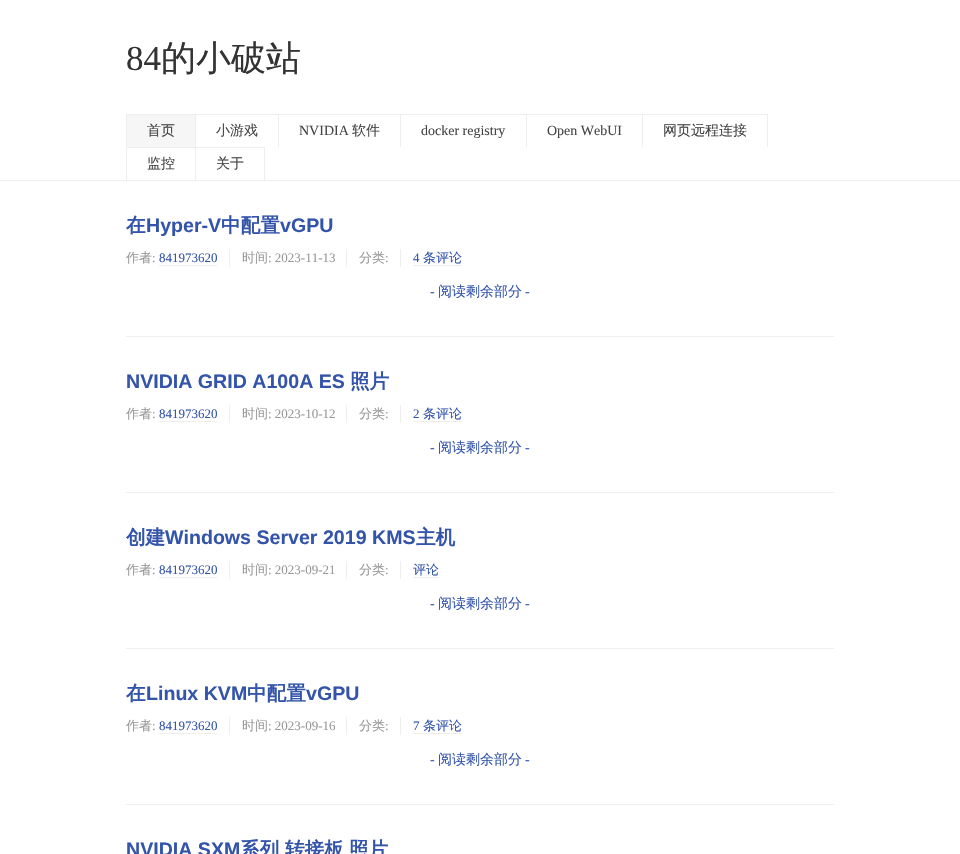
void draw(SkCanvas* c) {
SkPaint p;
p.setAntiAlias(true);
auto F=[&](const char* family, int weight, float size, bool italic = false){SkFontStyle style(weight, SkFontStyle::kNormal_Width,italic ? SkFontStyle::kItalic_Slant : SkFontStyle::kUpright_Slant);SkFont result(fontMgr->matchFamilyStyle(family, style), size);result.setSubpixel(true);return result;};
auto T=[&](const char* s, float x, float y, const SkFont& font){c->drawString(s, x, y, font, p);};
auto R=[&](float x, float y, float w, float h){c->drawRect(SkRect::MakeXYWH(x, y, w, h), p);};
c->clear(0xffffffff);
p.setColor(0xffeeeeee);
R(0,180,960,1);
auto f1 = F("Liberation Serif",400,35);
p.setColor(0xff333333);
T("84",126,70,f1);
auto f2 = F("WenQuanYi Zen Hei",500,35);
T("的小破站",161,70,f2);
p.setColor(0xfff6f6f6);
R(127,115,68,32);
p.setColor(0xffeeeeee);
R(126,114,70,1);
R(195,114,1,33);
R(126,114,1,33);
auto f3 = F("WenQuanYi Zen Hei",500,14);
p.setColor(0xff444444);
T("首页",147,135,f3);
p.setColor(0xffeeeeee);
R(195,114,84,1);
R(278,114,1,33);
p.setColor(0xff444444);
T("小游戏",216,135,f3);
p.setColor(0xffeeeeee);
R(278,114,123,1);
R(400,114,1,33);
auto f4 = F("Liberation Serif",400,14);
p.setColor(0xff444444);
T("NVIDIA",299,135,f4);
T("软件",352,135,f3);
p.setColor(0xffeeeeee);
R(400,114,127,1);
R(526,114,1,33);
p.setColor(0xff444444);
T("docker registry",421,135,f4);
p.setColor(0xffeeeeee);
R(526,114,117,1);
R(642,114,1,33);
p.setColor(0xff444444);
T("Open WebUI",547,135,f4);
p.setColor(0xffeeeeee);
R(642,114,126,1);
R(767,114,1,33);
p.setColor(0xff444444);
T("网页远程连接",663,135,f3);
p.setColor(0xffeeeeee);
R(126,147,70,1);
R(195,147,1,33);
R(126,147,1,33);
p.setColor(0xff444444);
T("监控",147,168,f3);
p.setColor(0xffeeeeee);
R(195,147,70,1);
R(264,147,1,33);
p.setColor(0xff444444);
T("关于",216,168,f3);
p.setColor(0xffeeeeee);
R(126,336,708,1);
auto f5 = F("WenQuanYi Zen Hei",700,19.6);
p.setColor(0xff3354aa);
T("在",126,232,f5);
auto f6 = F("Liberation Sans",700,19.6);
T("Hyper-V",146,232,f6);
T("中配置",221,232,f5);
T("vGPU",280,232,f6);
auto f7 = F("WenQuanYi Zen Hei",500,13);
p.setColor(0xff999999);
T("作者",126,262,f7);
auto f8 = F("Liberation Serif",400,13);
T(":",152,262,f8);
p.setColor(0xff3354aa);
T("841973620",159,262,f8);
p.setColor(0xffeeeeee);
R(159,265,58,1);
R(229,249,1,18);
p.setColor(0xff999999);
T("时间",242,262,f7);
T(": 2023-11-13",268,262,f8);
p.setColor(0xffeeeeee);
R(346,249,1,18);
p.setColor(0xff999999);
T("分类",359,262,f7);
T(":",385,262,f8);
p.setColor(0xffeeeeee);
R(400,249,1,18);
p.setColor(0xff3354aa);
T("4",413,262,f8);
p.setColor(0xffeeeeee);
R(413,265,49,1);
p.setColor(0xff3354aa);
T("条评论",423,262,f7);
T("-",430,296,f4);
T("阅读剩余部分",438,296,f3);
T("-",525,296,f4);
p.setColor(0xffeeeeee);
R(126,492,708,1);
p.setColor(0xff3354aa);
T("NVIDIA GRID A100A ES",126,388,f6);
T("照片",350,388,f5);
p.setColor(0xff999999);
T("作者",126,418,f7);
T(":",152,418,f8);
p.setColor(0xff3354aa);
T("841973620",159,418,f8);
p.setColor(0xffeeeeee);
R(159,421,58,1);
R(229,405,1,18);
p.setColor(0xff999999);
T("时间",242,418,f7);
T(": 2023-10-12",268,418,f8);
p.setColor(0xffeeeeee);
R(346,405,1,18);
p.setColor(0xff999999);
T("分类",359,418,f7);
T(":",385,418,f8);
p.setColor(0xffeeeeee);
R(400,405,1,18);
p.setColor(0xff3354aa);
T("2",413,418,f8);
p.setColor(0xffeeeeee);
R(413,421,49,1);
p.setColor(0xff3354aa);
T("条评论",423,418,f7);
T("-",430,452,f4);
T("阅读剩余部分",438,452,f3);
T("-",525,452,f4);
p.setColor(0xffeeeeee);
R(126,648,708,1);
p.setColor(0xff3354aa);
T("创建",126,544,f5);
T("Windows Server 2019 KMS",165,544,f6);
T("主机",416,544,f5);
p.setColor(0xff999999);
T("作者",126,574,f7);
T(":",152,574,f8);
p.setColor(0xff3354aa);
T("841973620",159,574,f8);
p.setColor(0xffeeeeee);
R(159,577,58,1);
R(229,561,1,18);
p.setColor(0xff999999);
T("时间",242,574,f7);
T(": 2023-09-21",268,574,f8);
p.setColor(0xffeeeeee);
R(346,561,1,18);
p.setColor(0xff999999);
T("分类",359,574,f7);
T(":",385,574,f8);
p.setColor(0xffeeeeee);
R(400,561,1,18);
p.setColor(0xff3354aa);
T("评论",413,574,f7);
p.setColor(0xffeeeeee);
R(413,577,26,1);
p.setColor(0xff3354aa);
T("-",430,608,f4);
T("阅读剩余部分",438,608,f3);
T("-",525,608,f4);
p.setColor(0xffeeeeee);
R(126,804,708,1);
p.setColor(0xff3354aa);
T("在",126,700,f5);
T("Linux KVM",146,700,f6);
T("中配置",247,700,f5);
T("vGPU",306,700,f6);
p.setColor(0xff999999);
T("作者",126,730,f7);
T(":",152,730,f8);
p.setColor(0xff3354aa);
T("841973620",159,730,f8);
p.setColor(0xffeeeeee);
R(159,733,58,1);
R(229,717,1,18);
p.setColor(0xff999999);
T("时间",242,730,f7);
T(": 2023-09-16",268,730,f8);
p.setColor(0xffeeeeee);
R(346,717,1,18);
p.setColor(0xff999999);
T("分类",359,730,f7);
T(":",385,730,f8);
p.setColor(0xffeeeeee);
R(400,717,1,18);
p.setColor(0xff3354aa);
T("7",413,730,f8);
p.setColor(0xffeeeeee);
R(413,733,49,1);
p.setColor(0xff3354aa);
T("条评论",423,730,f7);
T("-",430,764,f4);
T("阅读剩余部分",438,764,f3);
T("-",525,764,f4);
T("NVIDIA SXM",126,856,f6);
T("系列",240,856,f5);
T("转接板",285,856,f5);
T("照片",349,856,f5);
}
